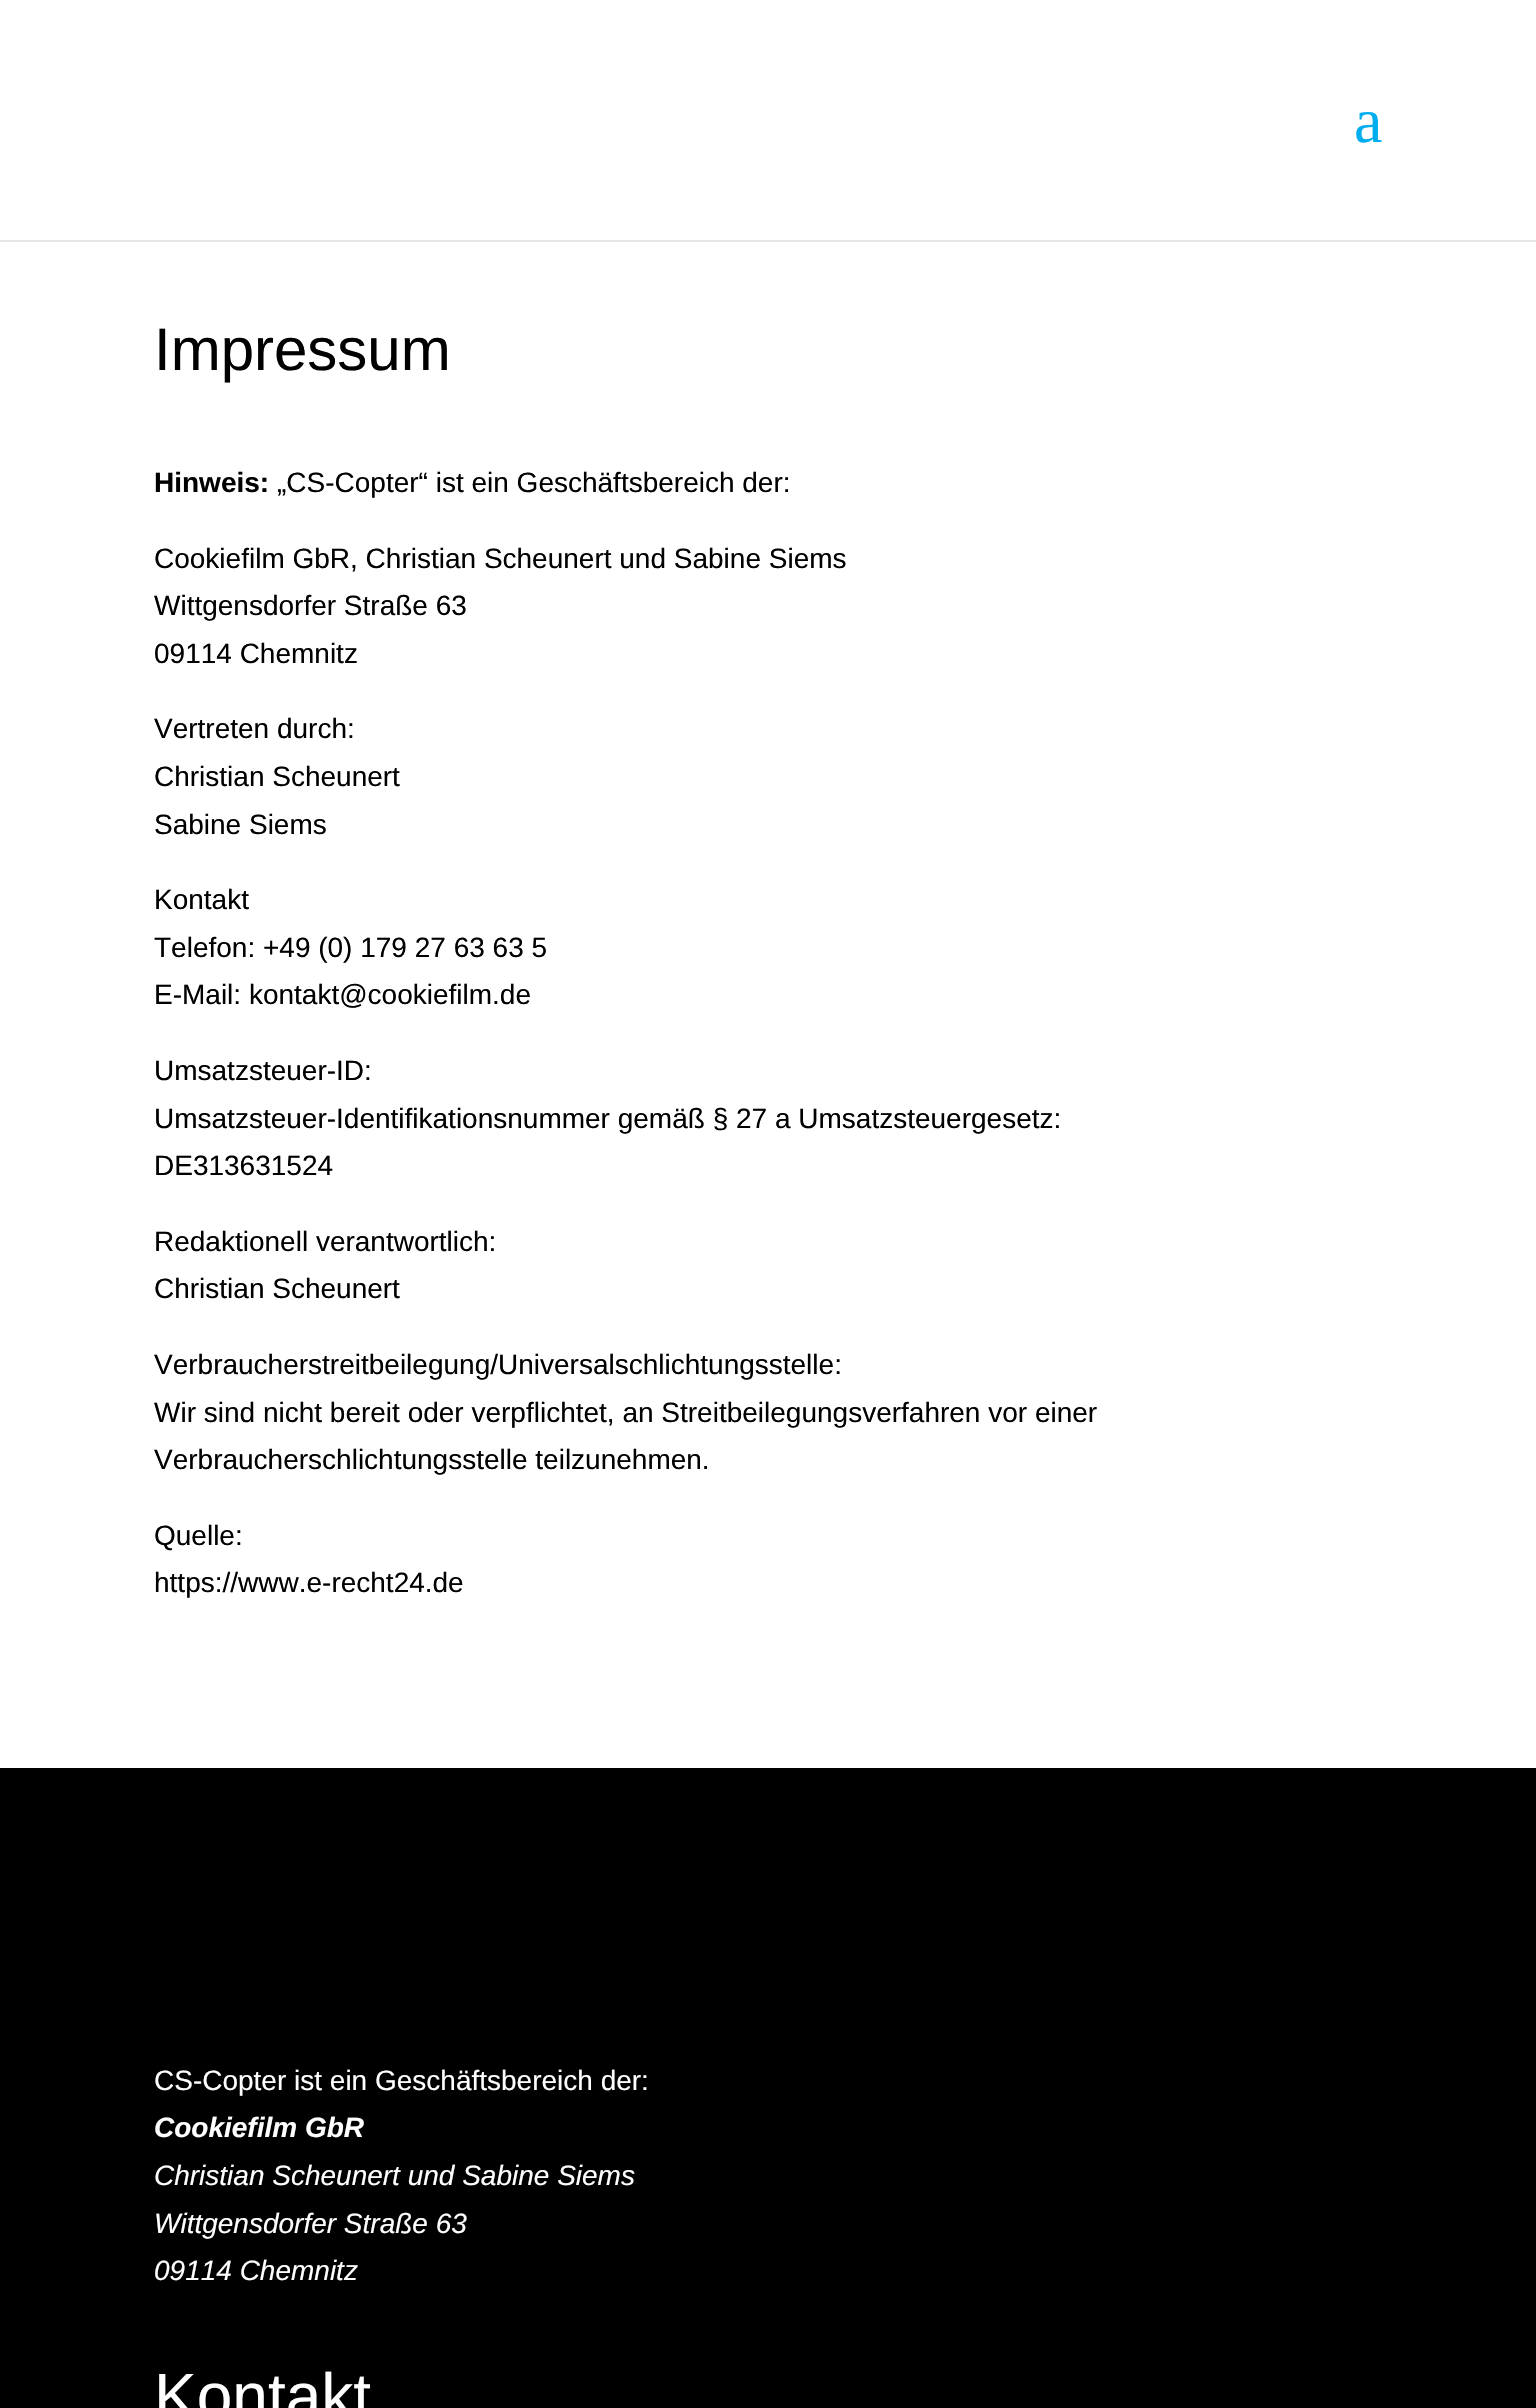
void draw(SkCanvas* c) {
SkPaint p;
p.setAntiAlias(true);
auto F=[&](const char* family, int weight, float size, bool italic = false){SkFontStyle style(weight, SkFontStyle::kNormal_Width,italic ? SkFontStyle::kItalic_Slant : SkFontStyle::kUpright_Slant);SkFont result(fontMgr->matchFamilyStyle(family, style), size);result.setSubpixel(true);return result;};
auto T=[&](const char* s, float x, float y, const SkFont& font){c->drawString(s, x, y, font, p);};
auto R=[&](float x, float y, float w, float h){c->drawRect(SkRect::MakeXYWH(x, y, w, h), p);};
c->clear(0xffffffff);
p.setColor(0xffe6e6e6);
R(0,240,1536,2);
auto f1 = F("Liberation Serif",400,64);
p.setColor(0xff00aeef);
T("a",1354,142,f1);
auto f2 = F("Liberation Sans",400,60);
p.setColor(0xff000000);
T("Impressum",154,370,f2);
auto f3 = F("Liberation Sans",700,28);
T("Hinweis:",154,492,f3);
auto f4 = F("Liberation Sans",400,28);
T("„CS-Copter“ ist ein Geschäftsbereich der:",277,492,f4);
T("Cookiefilm GbR, Christian Scheunert und Sabine Siems",154,568,f4);
T("Wittgensdorfer Straße 63",154,615,f4);
T("09114 Chemnitz",154,663,f4);
T("Vertreten durch:",154,738,f4);
T("Christian Scheunert",154,786,f4);
T("Sabine Siems",154,834,f4);
T("Kontakt",154,909,f4);
T("Telefon: +49 (0) 179 27 63 63 5",154,957,f4);
T("E-Mail: kontakt@cookiefilm.de",154,1004,f4);
T("Umsatzsteuer-ID:",154,1080,f4);
T("Umsatzsteuer-Identifikationsnummer gemäß § 27 a Umsatzsteuergesetz:",154,1128,f4);
T("DE313631524",154,1175,f4);
T("Redaktionell verantwortlich:",154,1251,f4);
T("Christian Scheunert",154,1298,f4);
T("Verbraucherstreitbeilegung/Universalschlichtungsstelle:",154,1374,f4);
T("Wir sind nicht bereit oder verpflichtet, an Streitbeilegungsverfahren vor einer",154,1422,f4);
T("Verbraucherschlichtungsstelle teilzunehmen.",154,1469,f4);
T("Quelle:",154,1545,f4);
T("https://www.e-recht24.de",154,1592,f4);
R(0,1768,1536,640);
p.setColor(0xffffffff);
T("CS-Copter ist ein Geschäftsbereich der:",154,2090,f4);
auto f5 = F("Liberation Sans",700,28,true);
T("Cookiefilm GbR",154,2137,f5);
auto f6 = F("Liberation Sans",400,28,true);
T("Christian Scheunert und Sabine Siems",154,2185,f6);
T("Wittgensdorfer Straße 63",154,2233,f6);
T("09114 Chemnitz",154,2280,f6);
auto f7 = F("Liberation Sans",400,64);
T("Kontakt",154,2418,f7);
}
